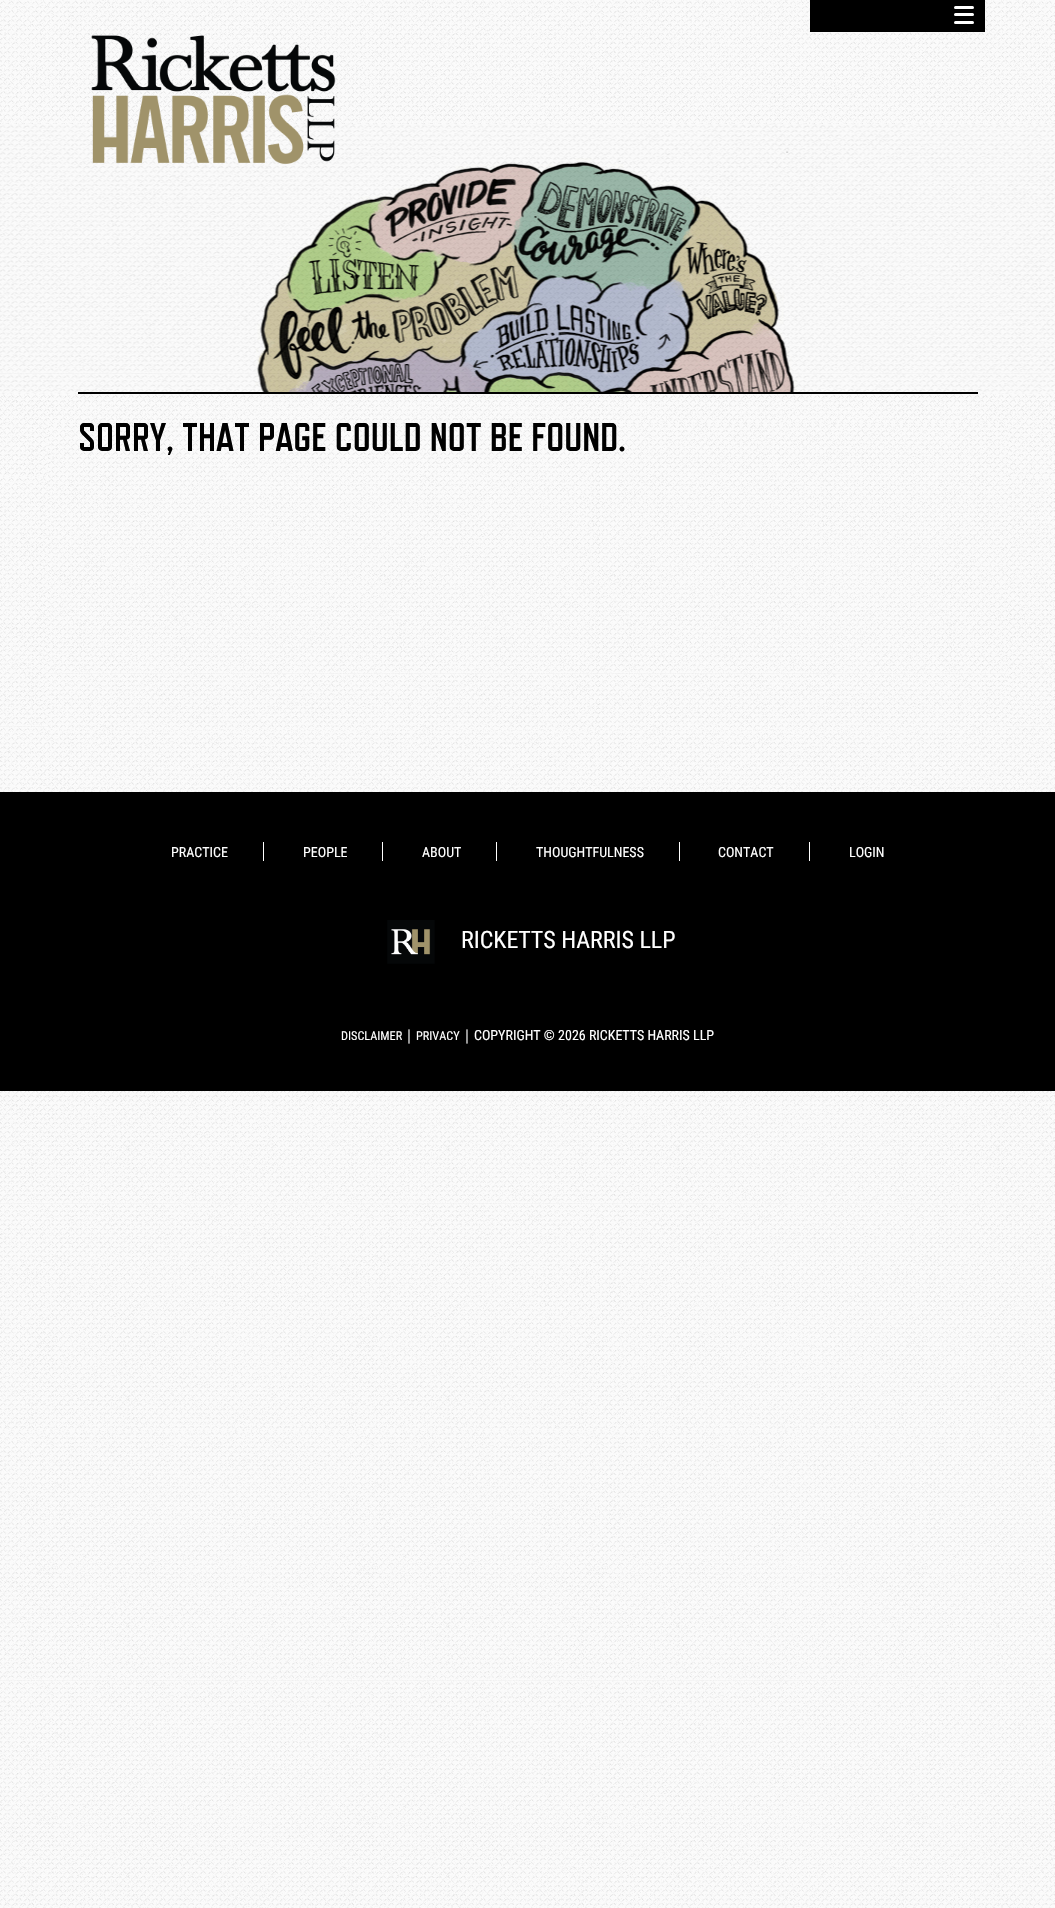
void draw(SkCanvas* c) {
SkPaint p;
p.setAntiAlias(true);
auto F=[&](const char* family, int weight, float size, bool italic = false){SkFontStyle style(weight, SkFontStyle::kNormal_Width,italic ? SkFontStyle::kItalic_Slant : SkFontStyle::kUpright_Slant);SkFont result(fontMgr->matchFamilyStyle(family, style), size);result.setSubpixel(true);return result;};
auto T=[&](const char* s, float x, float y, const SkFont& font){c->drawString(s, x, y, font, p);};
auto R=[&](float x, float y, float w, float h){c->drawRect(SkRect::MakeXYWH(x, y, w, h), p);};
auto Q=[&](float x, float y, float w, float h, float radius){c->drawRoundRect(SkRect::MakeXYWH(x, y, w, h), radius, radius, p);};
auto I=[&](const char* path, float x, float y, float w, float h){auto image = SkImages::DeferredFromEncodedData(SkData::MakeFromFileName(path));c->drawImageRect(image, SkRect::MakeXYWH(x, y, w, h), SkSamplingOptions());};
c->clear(0xffffffff);
I("1.png",0,0,1055,1908);
p.setColor(0xff000000);
R(810,0,175,32);
p.setColor(0xffffffff);
Q(954,6,20,3,1.5);
Q(954,13,20,3,1.5);
Q(954,21,20,3,1.5);
I("3.png",0,124,1055,270);
I("2.png",91,35,245,129);
I("4.png",48,424,960,306);
p.setColor(0xff000000);
R(78,392,900,2);
auto f1 = F("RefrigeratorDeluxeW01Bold",700,40);
T("SORRY, THAT PAGE COULD NOT BE FOUND.",78,451,f1);
R(0,792,1055,299);
p.setColor(0xffffffff);
R(263,842,1,19);
auto f2 = F("Roboto Condensed",400,14);
T("PRACTICE",171,857,f2);
R(382,842,1,19);
T("PEOPLE",303,857,f2);
R(496,842,1,19);
T("ABOUT",422,857,f2);
R(679,842,1,19);
T("THOUGHTFULNESS",536,857,f2);
R(809,842,1,19);
T("CONTACT",718,857,f2);
T("LOGIN",849,857,f2);
I("5.png",387,920,48,44);
auto f3 = F("Roboto Condensed",400,24);
T("RICKETTS HARRIS LLP",461,948,f3);
auto f4 = F("Roboto Condensed",400,12.25);
T("DISCLAIMER",341,1040,f4);
auto f5 = F("WenQuanYi Zen Hei",500,14);
T("｜",402,1040,f5);
T("PRIVACY",416,1040,f4);
T("｜",460,1040,f5);
T("COPYRIGHT © 2026 RICKETTS HARRIS LLP",474,1040,f2);
}
